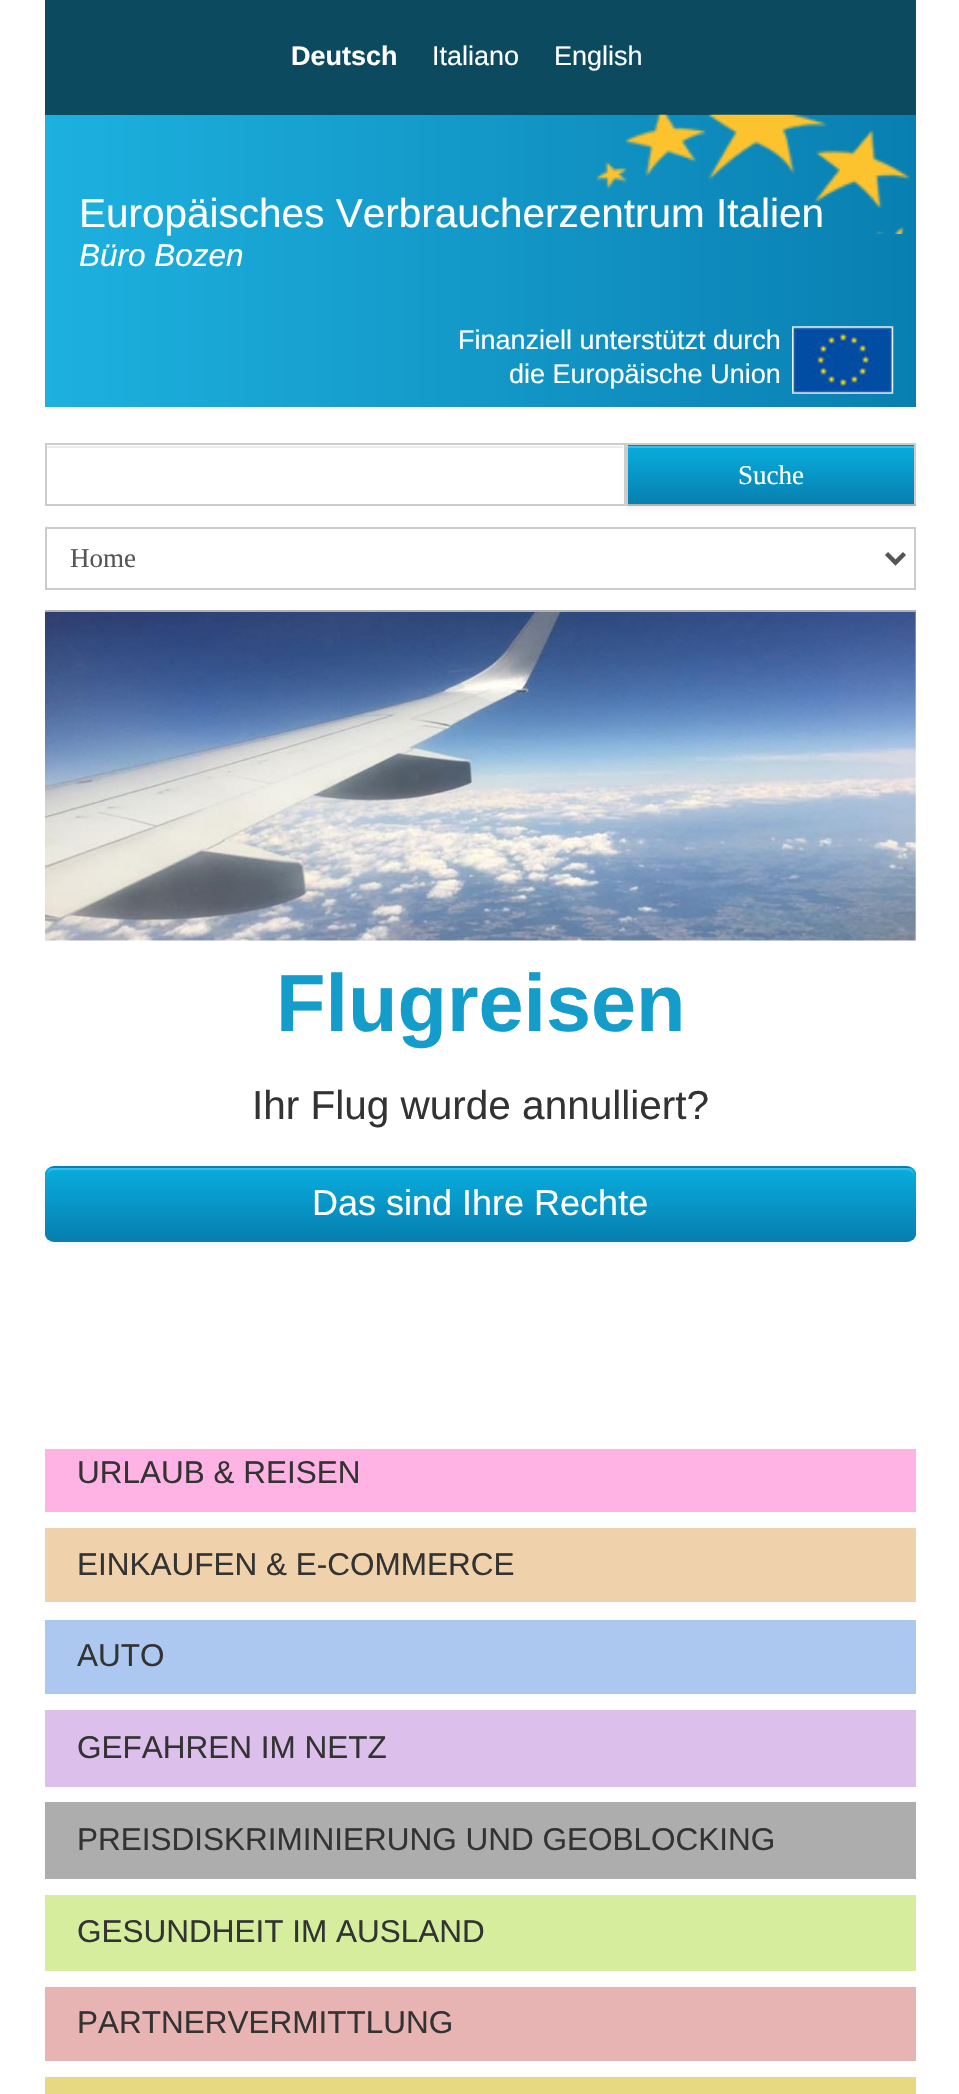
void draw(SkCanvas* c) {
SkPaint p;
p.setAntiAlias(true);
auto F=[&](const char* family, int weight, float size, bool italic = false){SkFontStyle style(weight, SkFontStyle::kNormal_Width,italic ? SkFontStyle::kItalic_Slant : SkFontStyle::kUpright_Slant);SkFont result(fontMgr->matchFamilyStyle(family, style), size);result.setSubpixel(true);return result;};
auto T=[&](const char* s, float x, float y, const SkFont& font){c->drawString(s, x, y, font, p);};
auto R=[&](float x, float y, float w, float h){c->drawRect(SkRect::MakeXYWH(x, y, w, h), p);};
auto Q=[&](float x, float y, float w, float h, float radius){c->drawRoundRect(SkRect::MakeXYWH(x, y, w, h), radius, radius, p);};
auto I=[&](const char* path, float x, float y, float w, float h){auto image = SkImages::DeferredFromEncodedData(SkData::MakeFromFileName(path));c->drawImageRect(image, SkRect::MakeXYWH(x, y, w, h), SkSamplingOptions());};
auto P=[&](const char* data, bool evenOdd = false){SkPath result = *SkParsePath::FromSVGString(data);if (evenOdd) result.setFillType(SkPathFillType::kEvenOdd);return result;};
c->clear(0xffffffff);
{
const SkColor colors[] = {0xff1db1df,0xff097fb1};
const float stops[] = {0,1};
const SkPoint ends[] = {{45,204}, {916,204}};
p.setShader(SkGradientShader::MakeLinear(ends, colors, stops, 2, SkTileMode::kClamp));
p.setAlpha(255);
}
R(45,115,871,292);
p.setShader(nullptr);
p.setColor(0xff0c4a5f);
R(45,0,871,115);
auto f1 = F("Liberation Sans",700,27);
p.setColor(0xffffffff);
T("Deutsch",291,65,f1);
auto f2 = F("Liberation Sans",400,27);
T("Italiano",432,65,f2);
T("English",554,65,f2);
I("1.png",792,326,102,68);
T("Finanziell unterstützt durch",458,349,f2);
T("die Europäische Union",509,383,f2);
I("2.png",596,114,314,120);
auto f3 = F("Liberation Sans",400,40.5);
T("Europäisches Verbraucherzentrum Italien",79,227,f3);
auto f4 = F("Liberation Sans",400,31.5,true);
T("Büro Bozen",79,266,f4);
p.setColor(0xffb2b2b2);
R(45,610,871,2);
p.setColor(0x0d000000);
p.setMaskFilter(SkMaskFilter::MakeBlur(kNormal_SkBlurStyle, 2));
c->drawRect(SkRect::MakeXYWH(626,446,290,63),p);
p.setMaskFilter(nullptr);
p.setColor(0xffececec);
R(47,446,576,2);
p.setStroke(true);
p.setStrokeWidth(2);
p.setColor(0xffcccccc);
c->drawRect(SkRect::MakeXYWH(46,444,579,61),p);
p.setStroke(false);
p.setColor(0xff077faf);
R(628,445,286,1);
{
const SkColor colors[] = {0xff08adde,0xff077faf};
const float stops[] = {0,1};
const SkPoint ends[] = {{771,446}, {771,504}};
p.setShader(SkGradientShader::MakeLinear(ends, colors, stops, 2, SkTileMode::kClamp));
p.setAlpha(255);
}
R(628,448,286,56);
p.setShader(nullptr);
p.setColor(0xff39bde4);
R(628,446,286,2);
p.setColor(0xffcccccc);
R(626,443,290,2);
R(914,443,2,63);
p.setColor(0xffb3b3b3);
R(626,504,290,2);
p.setColor(0xffcccccc);
R(626,443,2,63);
auto f5 = F("Liberation Serif",400,27);
p.setColor(0xffffffff);
T("Suche",738,484,f5);
p.setStroke(true);
p.setColor(0xffcccccc);
c->drawRect(SkRect::MakeXYWH(46,528,869,61),p);
p.setStrokeWidth(4.5);
p.setColor(0xff555555);
c->drawPath(P("M886.5 553.5l9 9l9-9"),p);
p.setStroke(false);
T("Home",70,567,f5);
I("3.png",45,612,871,329);
auto f6 = F("Liberation Sans",700,81);
p.setColor(0xff149ccb);
T("Flugreisen",276,1031,f6);
p.setColor(0xff333333);
T("Ihr Flug wurde annulliert?",252,1119,f3);
p.setColor(0x0d000000);
p.setMaskFilter(SkMaskFilter::MakeBlur(kNormal_SkBlurStyle, 2));
c->drawRoundRect(SkRect::MakeXYWH(45,1168,871,76),9,9,p);
p.setMaskFilter(nullptr);
p.setColor(0xff077faf);
Q(45,1166,871,76,9);
c->save();
c->clipPath(P("M54 1166h853c5 0 9 4 9 9v58c0 5-4 9-9 9h-853c-5 0-9-4-9-9v-58c0-5 4-9 9-9z"),true);
{
const SkColor colors[] = {0xff08adde,0xff077faf};
const float stops[] = {0,1};
const SkPoint ends[] = {{480,1168}, {480,1240}};
p.setShader(SkGradientShader::MakeLinear(ends, colors, stops, 2, SkTileMode::kClamp));
p.setAlpha(255);
}
R(45,1168,871,72);
c->restore();
p.setShader(nullptr);
p.setColor(0x33ffffff);
c->drawPath(P("M54 1170h853c3 0 7 3 7 7c0-4-2-9-7-9h-853c-5 0-7 5-7 9c0-4 3-7 7-7z"),p);
auto f7 = F("Liberation Sans",400,36);
p.setColor(0xffffffff);
T("Das sind Ihre Rechte",312,1215,f7);
p.setColor(0xffffb3e4);
R(45,1449,871,63);
auto f8 = F("Liberation Sans",400,31.5);
p.setColor(0xff333333);
T("URLAUB & REISEN",77,1483,f8);
p.setColor(0xffefd1ab);
R(45,1528,871,74);
p.setColor(0xff333333);
T("EINKAUFEN & E-COMMERCE",77,1575,f8);
p.setColor(0xffacc8f0);
R(45,1620,871,74);
p.setColor(0xff333333);
T("AUTO",77,1666,f8);
p.setColor(0xffdcbfeb);
R(45,1710,871,77);
p.setColor(0xff333333);
T("GEFAHREN IM NETZ",77,1758,f8);
p.setColor(0xffadadad);
R(45,1802,871,77);
p.setColor(0xff333333);
T("PREISDISKRIMINIERUNG UND GEOBLOCKING",77,1850,f8);
p.setColor(0xffd6ed9d);
R(45,1895,871,76);
p.setColor(0xff333333);
T("GESUNDHEIT IM AUSLAND",77,1942,f8);
p.setColor(0xffe7b4b3);
R(45,1987,871,74);
p.setColor(0xff333333);
T("PARTNERVERMITTLUNG",77,2033,f8);
p.setColor(0xffe7d981);
R(45,2077,871,17);
}
